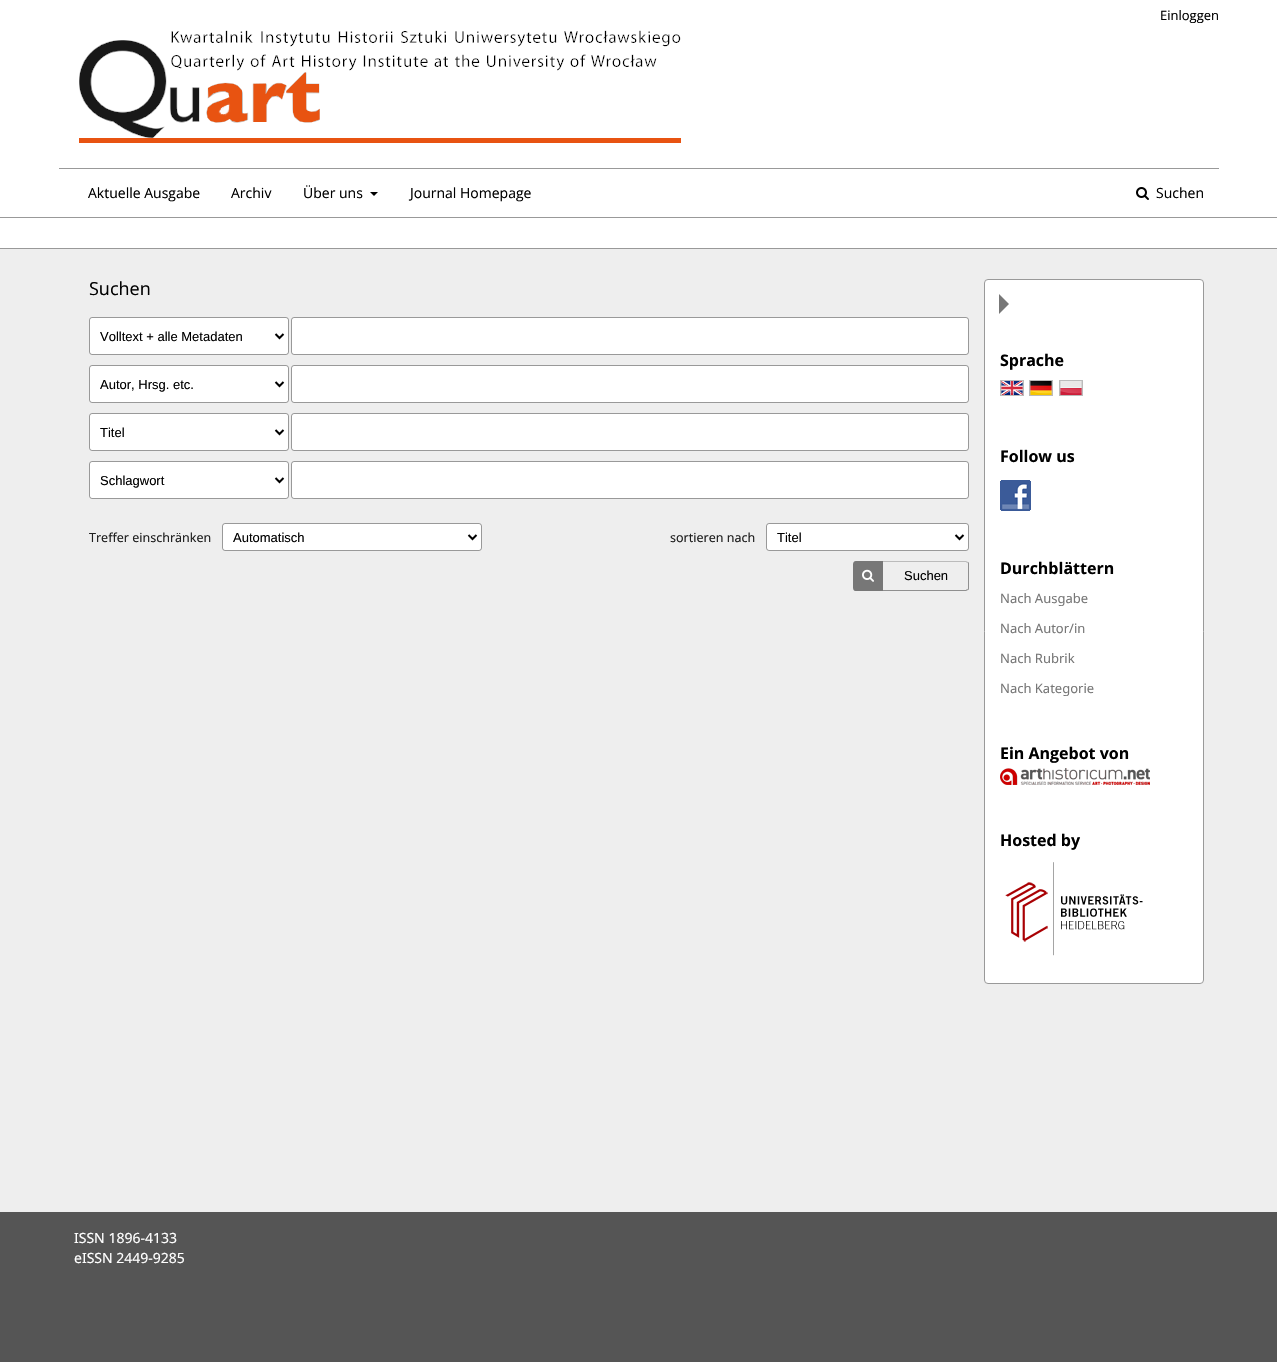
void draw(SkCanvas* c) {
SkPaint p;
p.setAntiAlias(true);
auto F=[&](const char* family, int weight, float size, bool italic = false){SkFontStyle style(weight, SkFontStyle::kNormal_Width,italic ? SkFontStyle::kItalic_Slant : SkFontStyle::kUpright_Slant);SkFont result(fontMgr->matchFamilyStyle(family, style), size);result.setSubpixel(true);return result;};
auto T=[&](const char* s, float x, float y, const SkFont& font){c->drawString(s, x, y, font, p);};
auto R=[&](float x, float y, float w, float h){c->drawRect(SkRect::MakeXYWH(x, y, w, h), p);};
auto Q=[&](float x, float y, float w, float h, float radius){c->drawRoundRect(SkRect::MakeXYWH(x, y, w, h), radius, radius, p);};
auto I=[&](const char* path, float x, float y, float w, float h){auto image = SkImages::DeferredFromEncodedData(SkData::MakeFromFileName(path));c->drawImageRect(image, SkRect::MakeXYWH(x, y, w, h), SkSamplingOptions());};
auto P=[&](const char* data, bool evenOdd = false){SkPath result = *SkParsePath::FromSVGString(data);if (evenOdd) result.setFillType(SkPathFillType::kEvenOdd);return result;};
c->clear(0xffeeeeee);
p.setColor(0xff999999);
R(0,248,1277,1);
p.setColor(0xffffffff);
R(0,0,1277,248);
auto f1 = F("Open Sans",400,13);
p.setColor(0xff000000);
T("Einloggen",1160,20,f1);
p.setColor(0xff999999);
R(0,217,1277,1);
R(59,168,1160,1);
auto f2 = F("Open Sans",400,14);
p.setColor(0xff000000);
T("Aktuelle Ausgabe",88,198,f2);
T("Archiv",231,198,f2);
T("Über uns",303,198,f2);
c->drawPath(P("M370 192h8l-4 4z"),p);
T("Journal Homepage",410,198,f2);
I("1.png",1136,187,13,13);
T("Suchen",1156,198,f2);
p.setColor(0xffe85311);
R(79,72,602,71);
I("2.png",79,30,602,108);
auto f3 = F("Open Sans",400,18);
p.setColor(0xff000000);
T("Suchen",89,295,f3);
p.setColor(0xffffffff);
Q(89,317,200,38,3);
p.setStroke(true);
p.setStrokeWidth(1);
p.setColor(0x66000000);
c->drawRoundRect(SkRect::MakeXYWH(89.5,317.5,199,37),2.5,2.5,p);
p.setStrokeWidth(2);
p.setColor(0xff000000);
c->drawPath(P("M275.5 334l4 4l4-4"),p);
auto f4 = F("Liberation Sans",400,13);
p.setStroke(false);
T("Volltext + alle Metadaten",100,341,f4);
p.setColor(0xffffffff);
Q(291,317,678,38,3);
p.setStroke(true);
p.setStrokeWidth(1);
p.setColor(0x66000000);
c->drawRoundRect(SkRect::MakeXYWH(291.5,317.5,677,37),2.5,2.5,p);
p.setStroke(false);
p.setColor(0xffffffff);
Q(89,365,200,38,3);
p.setStroke(true);
p.setColor(0x66000000);
c->drawRoundRect(SkRect::MakeXYWH(89.5,365.5,199,37),2.5,2.5,p);
p.setStrokeWidth(2);
p.setColor(0xff000000);
c->drawPath(P("M275.5 382l4 4l4-4"),p);
p.setStroke(false);
T("Autor, Hrsg. etc.",100,389,f4);
p.setColor(0xffffffff);
Q(291,365,678,38,3);
p.setStroke(true);
p.setStrokeWidth(1);
p.setColor(0x66000000);
c->drawRoundRect(SkRect::MakeXYWH(291.5,365.5,677,37),2.5,2.5,p);
p.setStroke(false);
p.setColor(0xffffffff);
Q(89,413,200,38,3);
p.setStroke(true);
p.setColor(0x66000000);
c->drawRoundRect(SkRect::MakeXYWH(89.5,413.5,199,37),2.5,2.5,p);
p.setStrokeWidth(2);
p.setColor(0xff000000);
c->drawPath(P("M275.5 430l4 4l4-4"),p);
p.setStroke(false);
T("Titel",100,437,f4);
p.setColor(0xffffffff);
Q(291,413,678,38,3);
p.setStroke(true);
p.setStrokeWidth(1);
p.setColor(0x66000000);
c->drawRoundRect(SkRect::MakeXYWH(291.5,413.5,677,37),2.5,2.5,p);
p.setStroke(false);
p.setColor(0xffffffff);
Q(89,461,200,38,3);
p.setStroke(true);
p.setColor(0x66000000);
c->drawRoundRect(SkRect::MakeXYWH(89.5,461.5,199,37),2.5,2.5,p);
p.setStrokeWidth(2);
p.setColor(0xff000000);
c->drawPath(P("M275.5 478l4 4l4-4"),p);
p.setStroke(false);
T("Schlagwort",100,485,f4);
p.setColor(0xffffffff);
Q(291,461,678,38,3);
p.setStroke(true);
p.setStrokeWidth(1);
p.setColor(0x66000000);
c->drawRoundRect(SkRect::MakeXYWH(291.5,461.5,677,37),2.5,2.5,p);
auto f5 = F("Noto Sans",400,12.5);
p.setStroke(false);
p.setColor(0xff1f1f1f);
T("Treffer einschränken",89,542,f5);
p.setColor(0xffffffff);
Q(222,523,260,28,3);
p.setStroke(true);
p.setColor(0x66000000);
c->drawRoundRect(SkRect::MakeXYWH(222.5,523.5,259,27),2.5,2.5,p);
p.setStrokeWidth(2);
p.setColor(0xff000000);
c->drawPath(P("M468.5 535l4 4l4-4"),p);
p.setStroke(false);
T("Automatisch",233,542,f4);
p.setColor(0xff1f1f1f);
T("sortieren nach",670,542,f5);
p.setColor(0xffffffff);
Q(766,523,203,28,3);
p.setStroke(true);
p.setStrokeWidth(1);
p.setColor(0x66000000);
c->drawRoundRect(SkRect::MakeXYWH(766.5,523.5,202,27),2.5,2.5,p);
p.setStrokeWidth(2);
p.setColor(0xff000000);
c->drawPath(P("M955.5 535l4 4l4-4"),p);
p.setStroke(false);
T("Titel",777,542,f4);
p.setColor(0xffbbbbbb);
c->drawPath(P("M856 561c-2 0-3 1-3 3c0-1 1-2 3-2h110l1 1l1-1l-2-1z"),p);
p.setColor(0xff8f8f8f);
c->drawPath(P("M967.5 589.5c.5-.5 .5-1 .5-1.5v-24c0-.5 0-1-.5-1.5l.5-.5c1 0 1 1 1 2v24c0 1 0 2-1 2z"),p);
p.setColor(0x66000000);
c->drawPath(P("M856 591h110l2-1l-1-1l-1 1h-110c-2 0-3-1-3-2c0 2 1 3 3 3z"),p);
p.setColor(0xff777777);
c->drawPath(P("M856 561h27v30h-27c-1.5 0-3-1.5-3-3v-24c0-1.5 1.5-3 3-3z"),p);
I("3.png",862,569,12,13);
p.setColor(0xff000000);
T("Suchen",904,580,f4);
p.setColor(0xffffffff);
c->drawRoundRect(SkRect::MakeXYWH(984.5,279.5,219,704),3.5,3.5,p);
p.setStroke(true);
p.setStrokeWidth(1);
p.setColor(0xff999999);
c->drawRoundRect(SkRect::MakeXYWH(984.5,279.5,219,704),3.5,3.5,p);
p.setStroke(false);
p.setColor(0xff777777);
c->drawPath(P("M999 314v-20l10 10z"),p);
auto f6 = F("Open Sans",700,16);
p.setColor(0xff000000);
T("Sprache",1000,366,f6);
p.setStroke(true);
p.setColor(0xffbbbbbb);
c->drawRect(SkRect::MakeXYWH(1000.5,380.5,23,15),p);
I("4.png",1001,381,22,14);
c->drawRect(SkRect::MakeXYWH(1029.5,380.5,23,15),p);
I("5.png",1030,381,22,14);
c->drawRect(SkRect::MakeXYWH(1059.5,380.5,23,15),p);
I("6.png",1060,381,22,14);
p.setStroke(false);
p.setColor(0xff000000);
T("Follow us",1000,462,f6);
I("7.png",1000,480,31,31);
T("Durchblättern",1000,574,f6);
auto f7 = F("Noto Sans",400,13);
p.setColor(0xff777777);
T("Nach Ausgabe",1000,603,f7);
T("Nach Autor/in",1000,633,f7);
T("Nach Rubrik",1000,663,f7);
T("Nach Kategorie",1000,693,f7);
p.setColor(0xff000000);
T("Ein Angebot von",1000,759,f6);
I("8.png",1000,768,150,17);
T("Hosted by",1000,846,f6);
I("9.png",1005,862,138,94);
p.setColor(0xff555555);
R(0,1212,1277,150);
auto f8 = F("Noto Sans",400,14);
p.setColor(0xffffffff);
T("ISSN 1896-4133",74,1243,f8);
T("eISSN 2449-9285",74,1263,f8);
}
